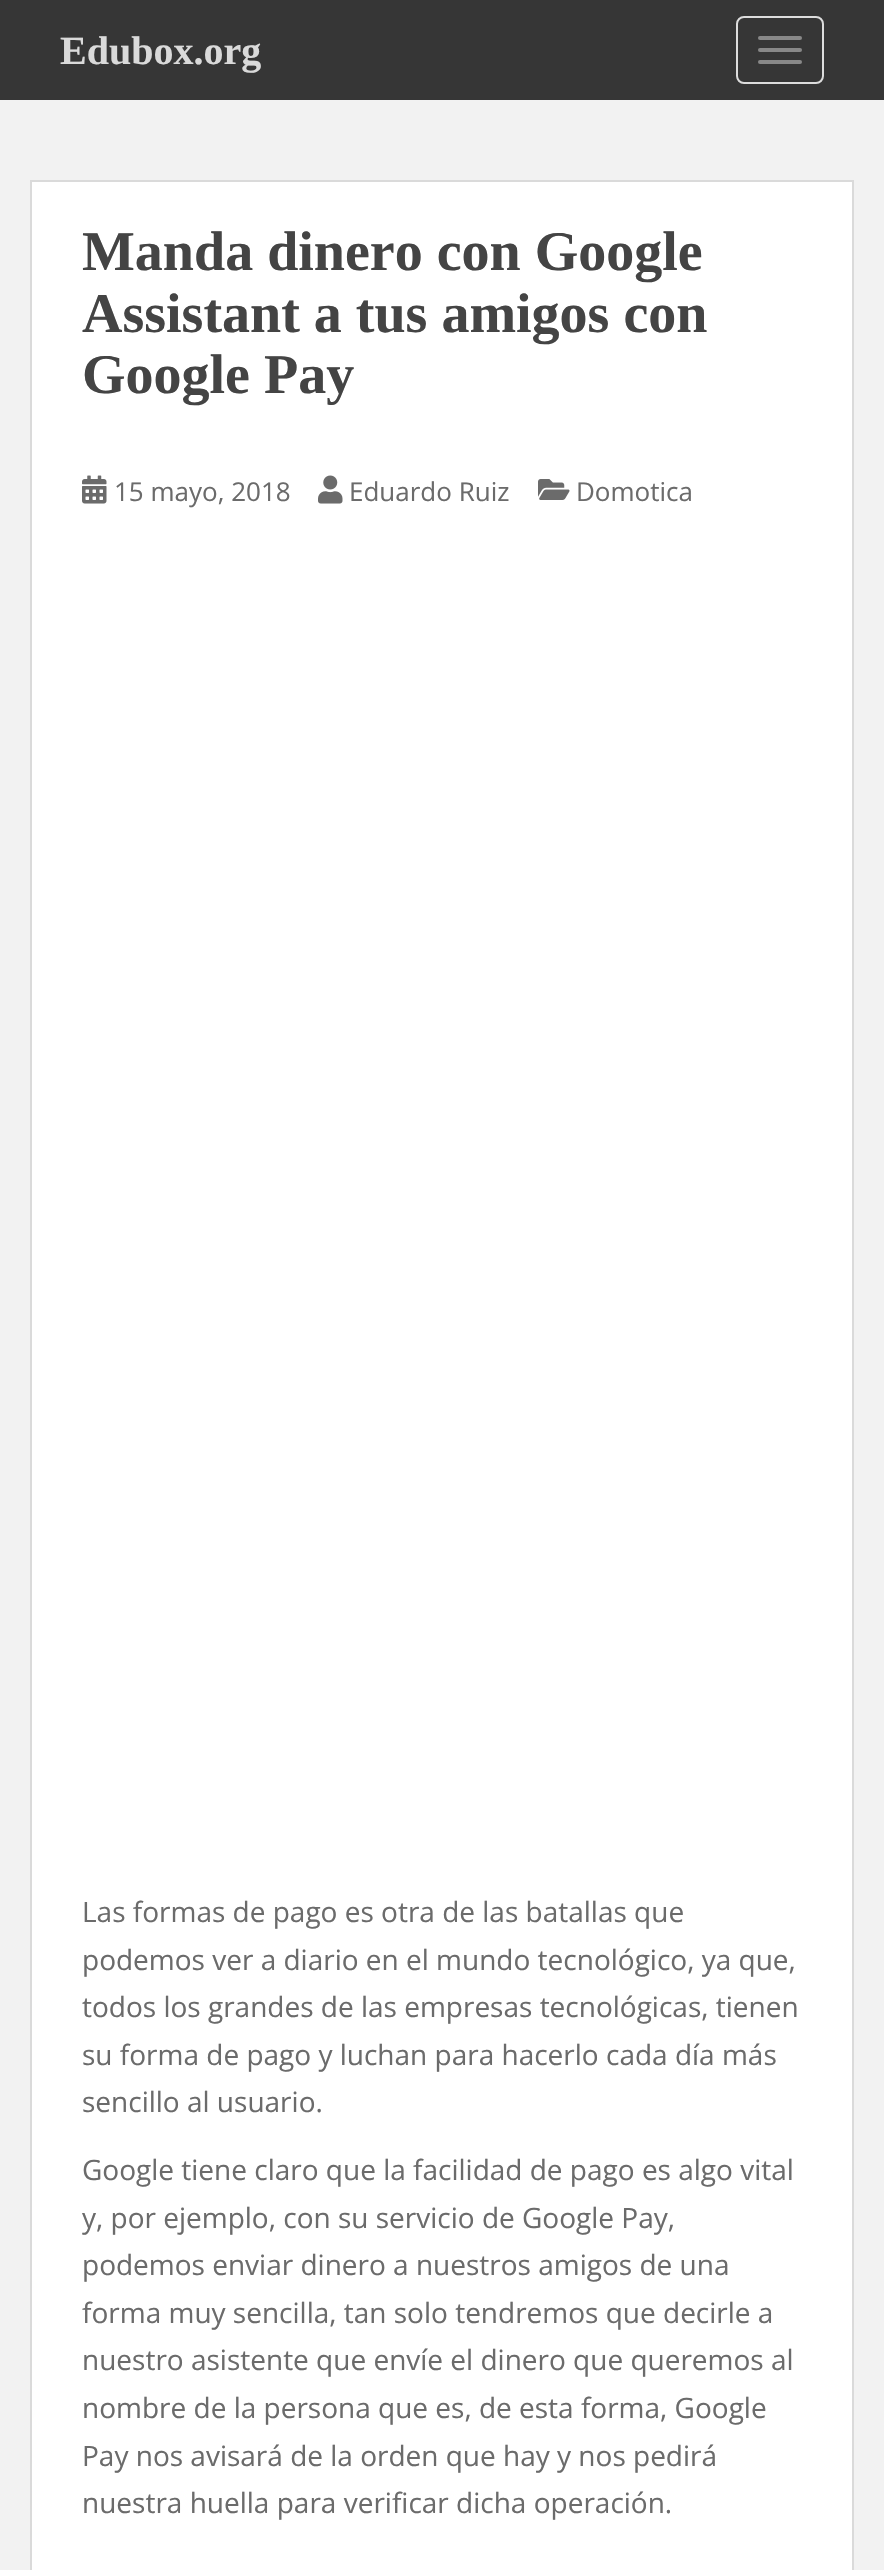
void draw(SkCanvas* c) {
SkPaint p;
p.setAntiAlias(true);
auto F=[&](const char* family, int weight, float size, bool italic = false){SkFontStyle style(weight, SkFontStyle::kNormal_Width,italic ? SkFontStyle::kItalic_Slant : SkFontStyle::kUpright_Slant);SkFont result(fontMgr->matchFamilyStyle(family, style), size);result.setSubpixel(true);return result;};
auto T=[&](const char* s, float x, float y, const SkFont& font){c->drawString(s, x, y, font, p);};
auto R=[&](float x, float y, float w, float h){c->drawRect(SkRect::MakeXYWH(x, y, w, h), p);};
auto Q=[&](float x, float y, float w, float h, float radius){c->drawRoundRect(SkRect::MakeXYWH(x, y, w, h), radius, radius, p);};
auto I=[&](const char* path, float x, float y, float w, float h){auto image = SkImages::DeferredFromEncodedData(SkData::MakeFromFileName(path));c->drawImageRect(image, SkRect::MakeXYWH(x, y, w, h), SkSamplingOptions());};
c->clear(0xfff2f2f2);
p.setColor(0xff363636);
R(0,0,884,100);
auto f1 = F("Liberation Serif",700,40);
p.setColor(0xffdadada);
T("Edubox.org",60,64,f1);
p.setStroke(true);
p.setStrokeWidth(2);
p.setColor(0xffdddddd);
c->drawRoundRect(SkRect::MakeXYWH(737,17,86,66),7,7,p);
p.setStroke(false);
p.setColor(0xff888888);
Q(758,36,44,4,2);
Q(758,48,44,4,2);
Q(758,60,44,4,2);
p.setColor(0xffffffff);
c->drawRect(SkRect::MakeXYWH(31,181,822,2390),p);
p.setStroke(true);
p.setColor(0xffdadada);
c->drawRect(SkRect::MakeXYWH(31,181,822,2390),p);
auto f2 = F("Liberation Serif",700,56);
p.setStroke(false);
p.setColor(0xff444444);
T("Manda dinero con Google",82,270,f2);
T("Assistant a tus amigos con",82,332,f2);
T("Google Pay",82,393,f2);
I("1.png",82,475,25,29);
auto f3 = F("Open Sans",400,26);
p.setColor(0xff6b6b6b);
T("15 mayo, 2018",114,501,f3);
I("2.png",318,475,25,29);
T("Eduardo Ruiz",349,501,f3);
I("3.png",538,479,32,21);
T("Domotica",576,501,f3);
auto f4 = F("Open Sans",400,28);
T("Las formas de pago es otra de las batallas que",82,1922,f4);
T("podemos ver a diario en el mundo tecnológico, ya que,",82,1970,f4);
T("todos los grandes de las empresas tecnológicas, tienen",82,2017,f4);
T("su forma de pago y luchan para hacerlo cada día más",82,2065,f4);
T("sencillo al usuario.",82,2112,f4);
T("Google tiene claro que la facilidad de pago es algo vital",82,2180,f4);
T("y, por ejemplo, con su servicio de Google Pay,",82,2228,f4);
T("podemos enviar dinero a nuestros amigos de una",82,2275,f4);
T("forma muy sencilla, tan solo tendremos que decirle a",82,2323,f4);
T("nuestro asistente que envíe el dinero que queremos al",82,2370,f4);
T("nombre de la persona que es, de esta forma, Google",82,2418,f4);
T("Pay nos avisará de la orden que hay y nos pedirá",82,2466,f4);
T("nuestra huella para verificar dicha operación.",82,2513,f4);
}
